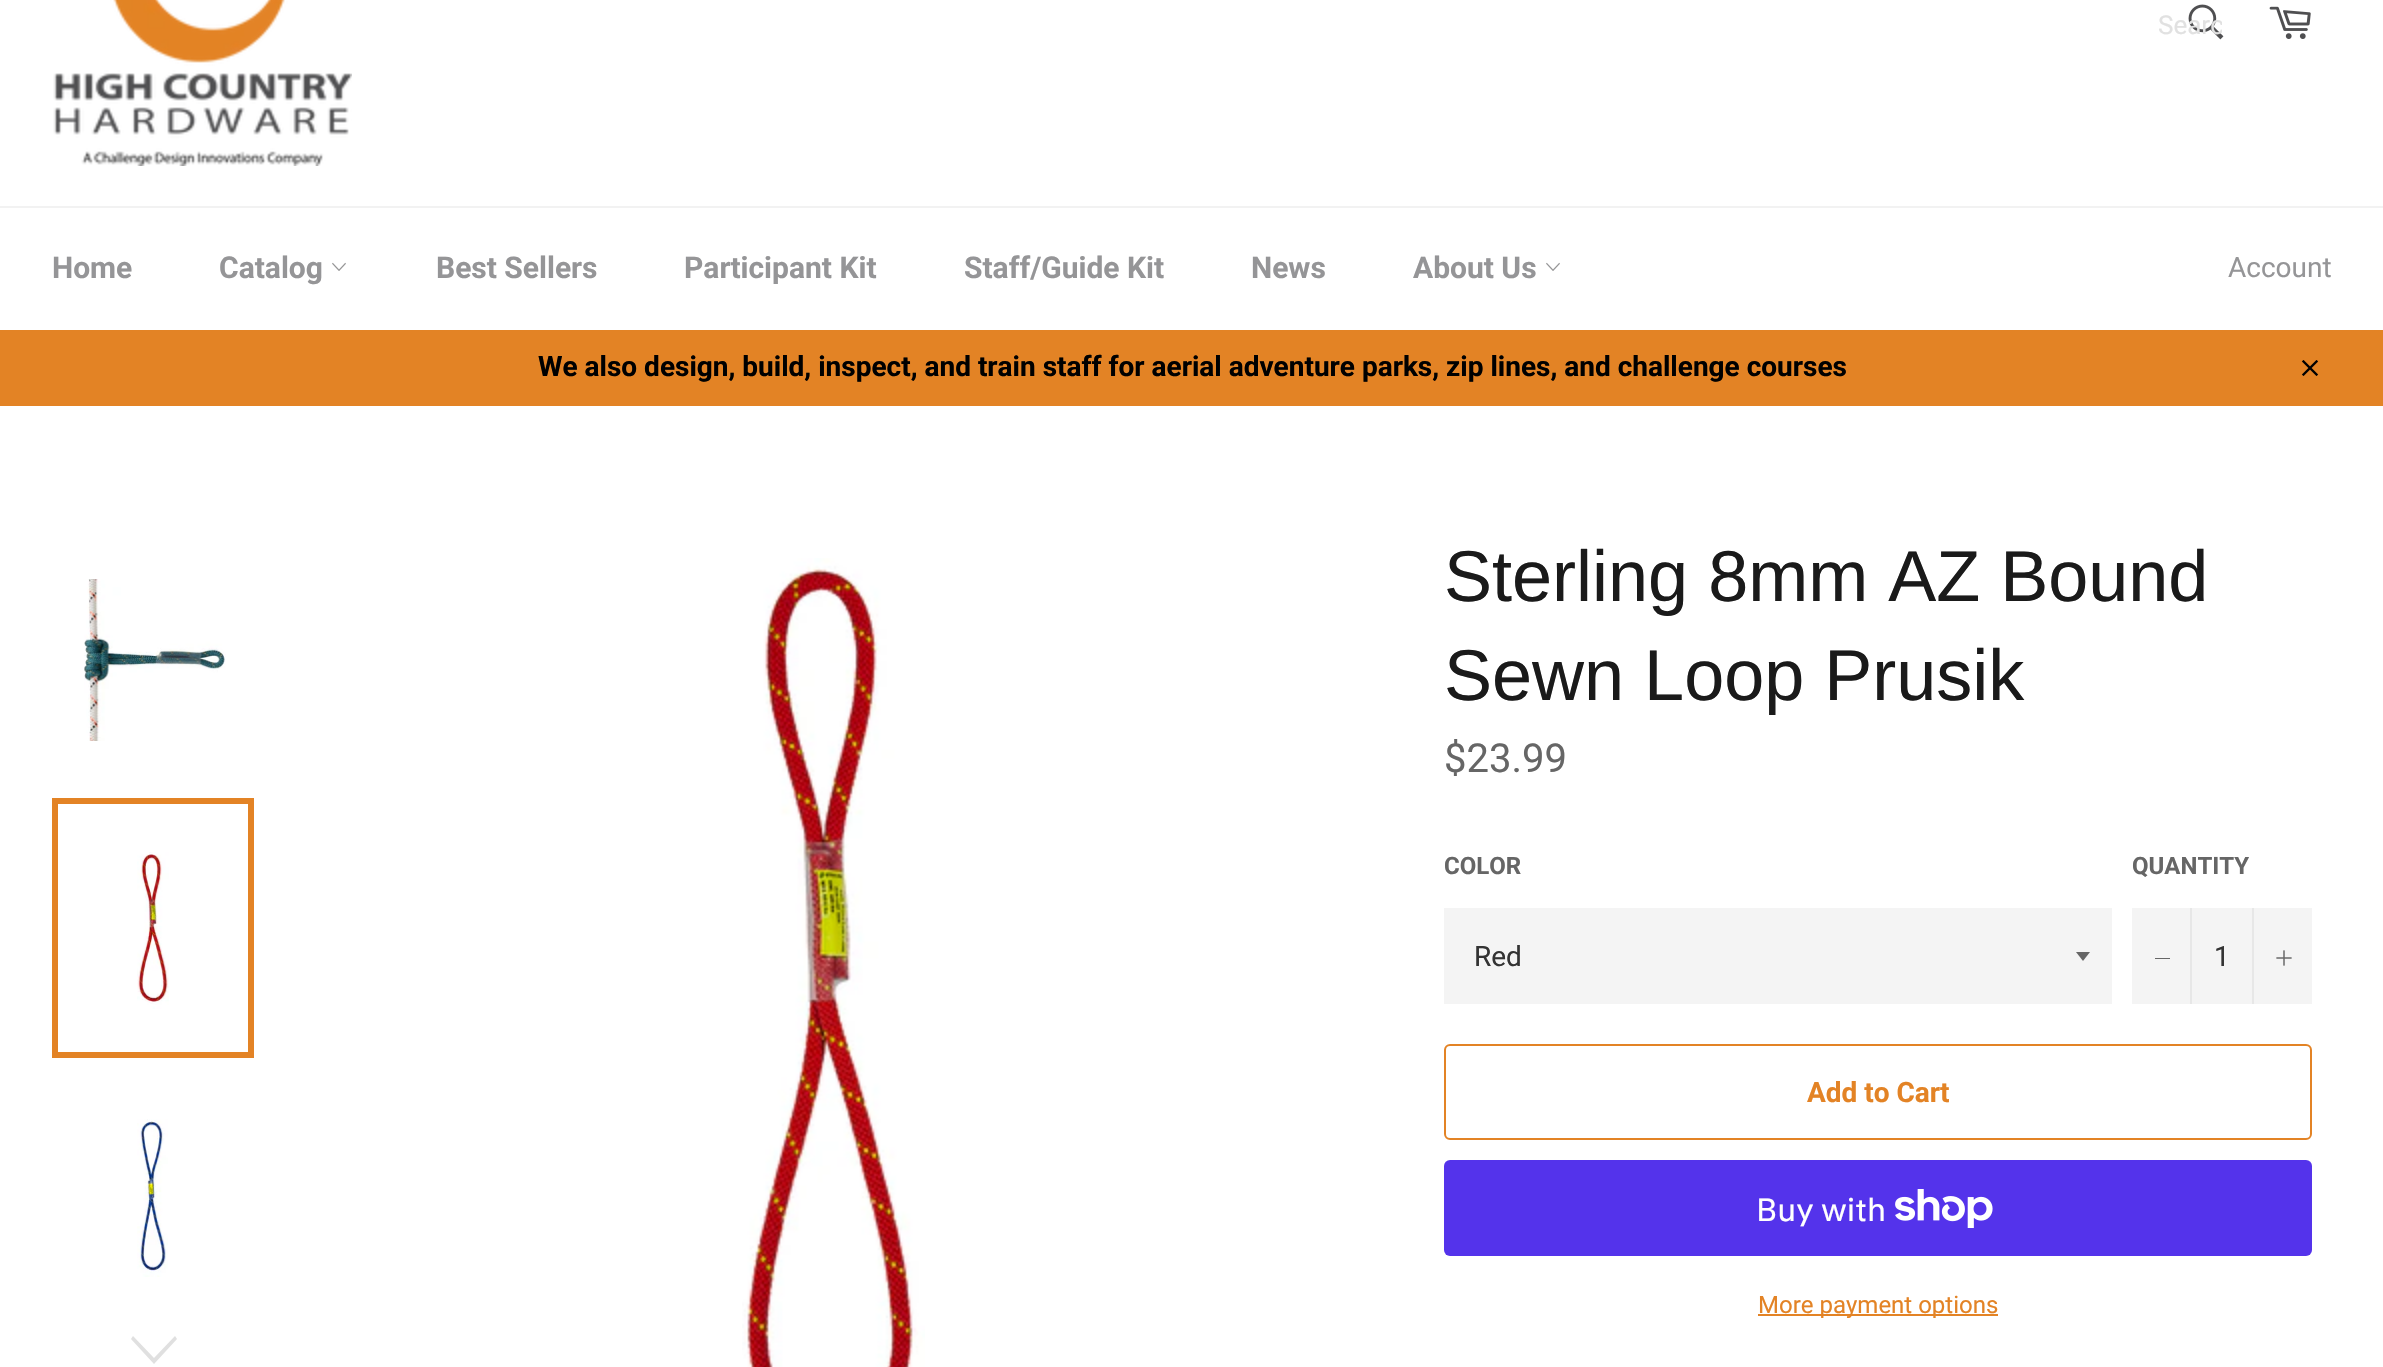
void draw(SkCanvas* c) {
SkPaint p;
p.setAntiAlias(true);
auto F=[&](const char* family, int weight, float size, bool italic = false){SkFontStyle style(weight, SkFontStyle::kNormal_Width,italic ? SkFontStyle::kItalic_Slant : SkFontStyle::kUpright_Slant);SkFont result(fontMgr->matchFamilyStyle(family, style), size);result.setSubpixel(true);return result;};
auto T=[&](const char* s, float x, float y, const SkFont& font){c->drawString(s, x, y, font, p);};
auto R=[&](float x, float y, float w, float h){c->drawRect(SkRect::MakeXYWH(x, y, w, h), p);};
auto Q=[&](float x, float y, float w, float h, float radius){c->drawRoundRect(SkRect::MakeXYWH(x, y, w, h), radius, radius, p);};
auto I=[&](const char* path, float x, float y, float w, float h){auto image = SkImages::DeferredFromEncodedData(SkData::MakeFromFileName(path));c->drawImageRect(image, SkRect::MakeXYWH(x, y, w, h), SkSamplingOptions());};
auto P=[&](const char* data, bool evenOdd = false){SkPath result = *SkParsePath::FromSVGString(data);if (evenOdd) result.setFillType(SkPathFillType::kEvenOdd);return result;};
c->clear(0xffffffff);
I("1.png",53,0,299,166);
I("2.png",2188,4,36,36);
c->save();
c->clipRect(SkRect::MakeXYWH(2158,10,64,30));
auto f1 = F("Roboto",400,26);
p.setColor(0xffe1e1e1);
T("Searc",2158,34,f1);
c->restore();
I("3.png",2269,6,42,33);
p.setColor(0xfff2f2f2);
R(0,206,2383,2);
auto f2 = F("Roboto",700,30);
p.setColor(0xff959597);
T("Home",52,278,f2);
T("Catalog",219,278,f2);
I("4.png",332,262,14,9);
T("Best Sellers",436,278,f2);
T("Participant Kit",684,278,f2);
T("Staff/Guide Kit",964,278,f2);
T("News",1251,278,f2);
T("About Us",1413,278,f2);
I("4.png",1546,262,14,9);
auto f3 = F("Roboto",400,28);
T("Account",2228,277,f3);
p.setColor(0xffe38325);
R(0,330,2383,76);
auto f4 = F("Roboto",700,28);
p.setColor(0xff000000);
T("We also design, build, inspect, and train staff for aerial adventure parks, zip lines, and challenge courses",538,376,f4);
I("5.png",2301,360,18,16);
I("6.png",84,579,142,162);
I("7.png",137,852,32,157);
p.setStroke(true);
p.setStrokeWidth(6);
p.setColor(0xffe38325);
c->drawRect(SkRect::MakeXYWH(55,801,196,254),p);
I("8.png",137,1119,31,158);
p.setStroke(false);
p.setColor(0xffe0e0e0);
c->drawPath(P("M175 1336l2 3l-23 25l-23-25l2-3l21 22z"),p);
I("9.png",742,558,183,809);
auto f5 = F("Arimo",400,72);
p.setColor(0xff1a1a1a);
T("Sterling 8mm AZ Bound",1444,601,f5);
T("Sewn Loop Prusik",1444,700,f5);
auto f6 = F("Roboto",400,40);
p.setColor(0xff666666);
T("$23.99",1444,772,f6);
auto f7 = F("Roboto",700,24);
T("COLOR",1444,874,f7);
p.setColor(0xfff4f4f4);
R(1444,908,668,96);
p.setColor(0xff666666);
c->drawPath(P("M2076 952l7 9l7-9z"),p);
p.setColor(0xff333333);
T("Red",1474,966,f3);
p.setColor(0xff666666);
T("QUANTITY",2132,874,f7);
p.setColor(0xfff4f4f4);
R(2132,908,180,96);
p.setColor(0xffe7e7e7);
R(2190,908,2,96);
p.setColor(0xff666666);
R(2155,958,15,1);
p.setColor(0xff333333);
T("1",2214,966,f3);
p.setColor(0xffe7e7e7);
R(2252,908,2,96);
I("10.png",2276,950,16,16);
p.setStroke(true);
p.setStrokeWidth(2);
p.setColor(0xffe38325);
c->drawRoundRect(SkRect::MakeXYWH(1445,1045,866,94),5,5,p);
p.setStroke(false);
T("Add to Cart",1807,1102,f4);
p.setColor(0xff5433eb);
Q(1444,1160,868,96,6);
auto f8 = F("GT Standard",400,32);
p.setColor(0xffffffff);
T("Buy with",1756,1221,f8);
I("11.png",1895,1189,98,39);
p.setColor(0xffe38325);
R(1758,1314,240,2);
auto f9 = F("Roboto",400,24);
T("More payment options",1758,1313,f9);
}
